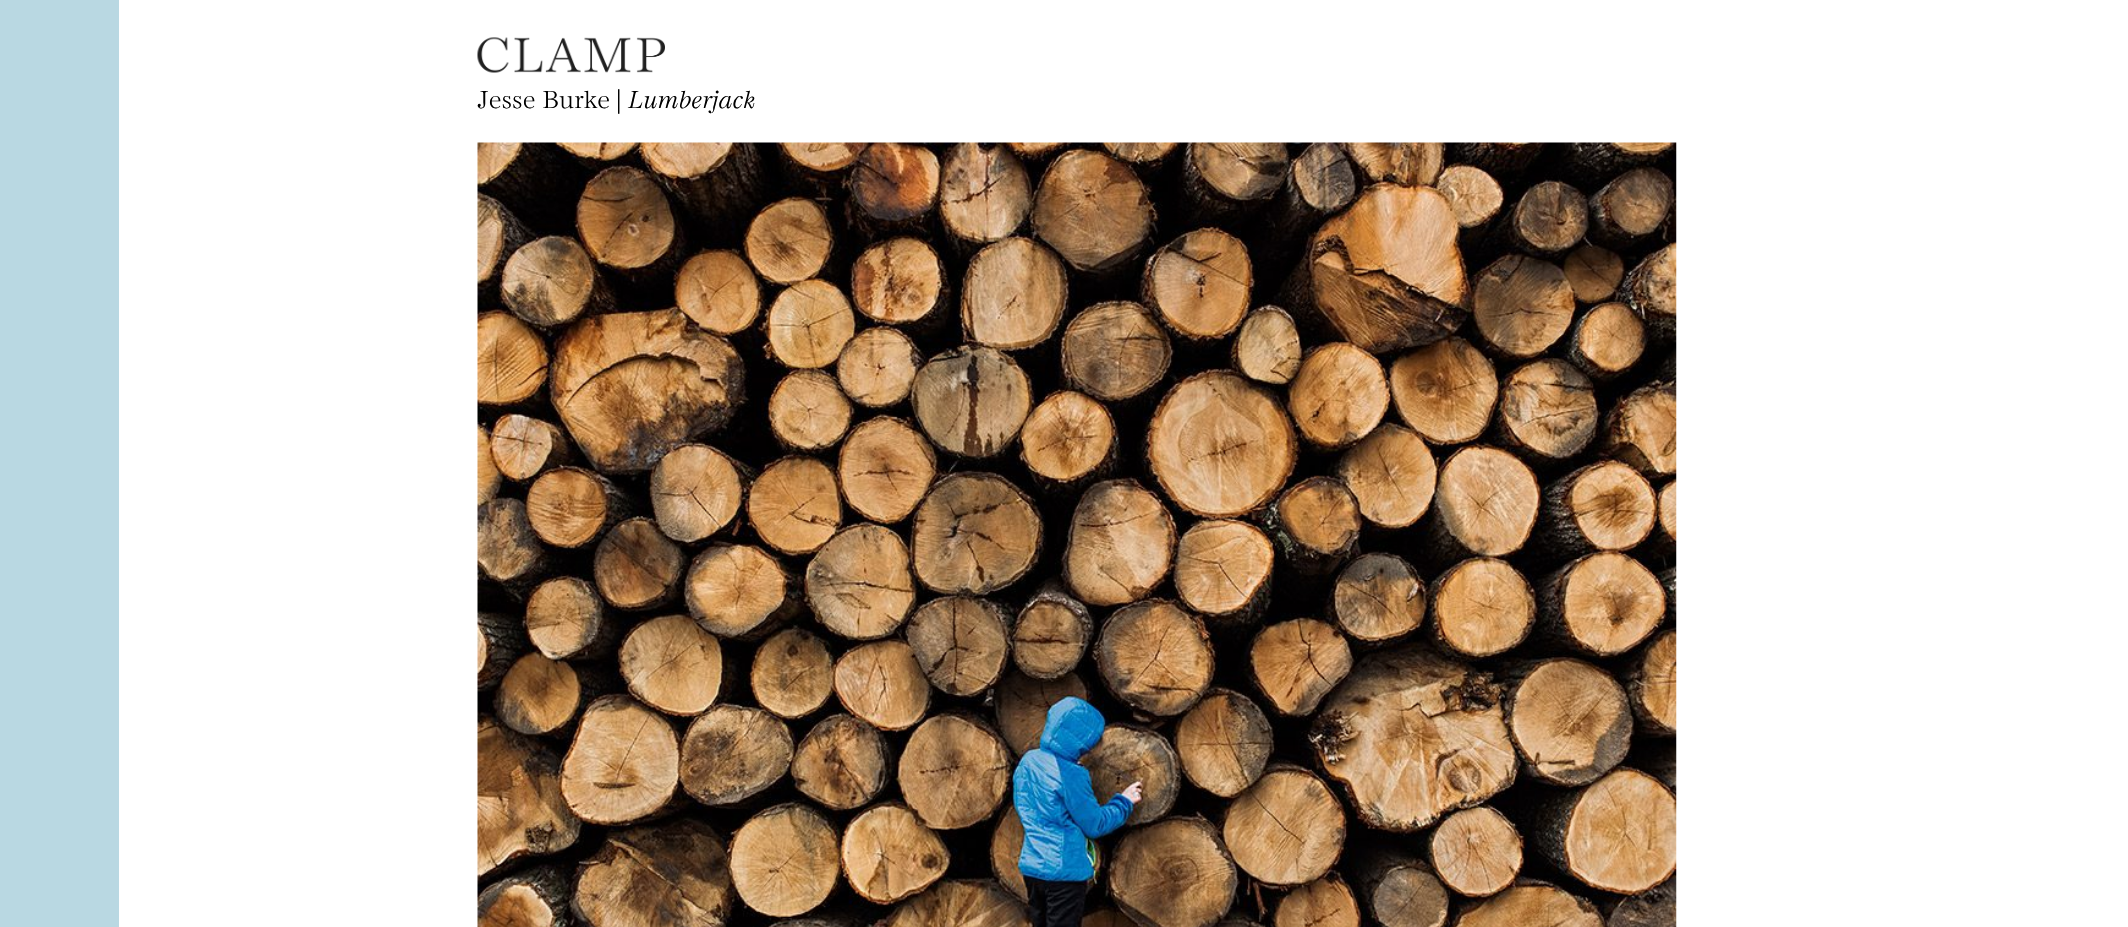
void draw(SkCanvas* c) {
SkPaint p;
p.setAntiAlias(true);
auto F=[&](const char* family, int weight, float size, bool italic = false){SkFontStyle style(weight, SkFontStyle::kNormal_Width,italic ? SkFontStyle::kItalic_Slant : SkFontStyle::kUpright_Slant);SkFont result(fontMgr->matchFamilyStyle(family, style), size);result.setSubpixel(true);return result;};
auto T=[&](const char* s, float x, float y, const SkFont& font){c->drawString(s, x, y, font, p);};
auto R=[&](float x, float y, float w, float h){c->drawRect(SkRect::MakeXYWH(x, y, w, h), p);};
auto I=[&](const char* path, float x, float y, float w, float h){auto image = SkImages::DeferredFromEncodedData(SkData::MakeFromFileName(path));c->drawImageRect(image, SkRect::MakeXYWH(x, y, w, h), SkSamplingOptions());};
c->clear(0xffffffff);
p.setColor(0xffb9d8e2);
R(0,0,119,927);
I("1.png",477,37,188,36);
auto f1 = F("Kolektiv",300,27);
p.setColor(0xff000000);
T("Jesse Burke",477,108,f1);
auto f2 = F("Liberation Serif",400,27);
T("|",616,108,f2);
auto f3 = F("Kolektiv",300,27,true);
T("Lumberjack",628,108,f3);
I("2.png",477,142,1200,785);
}
